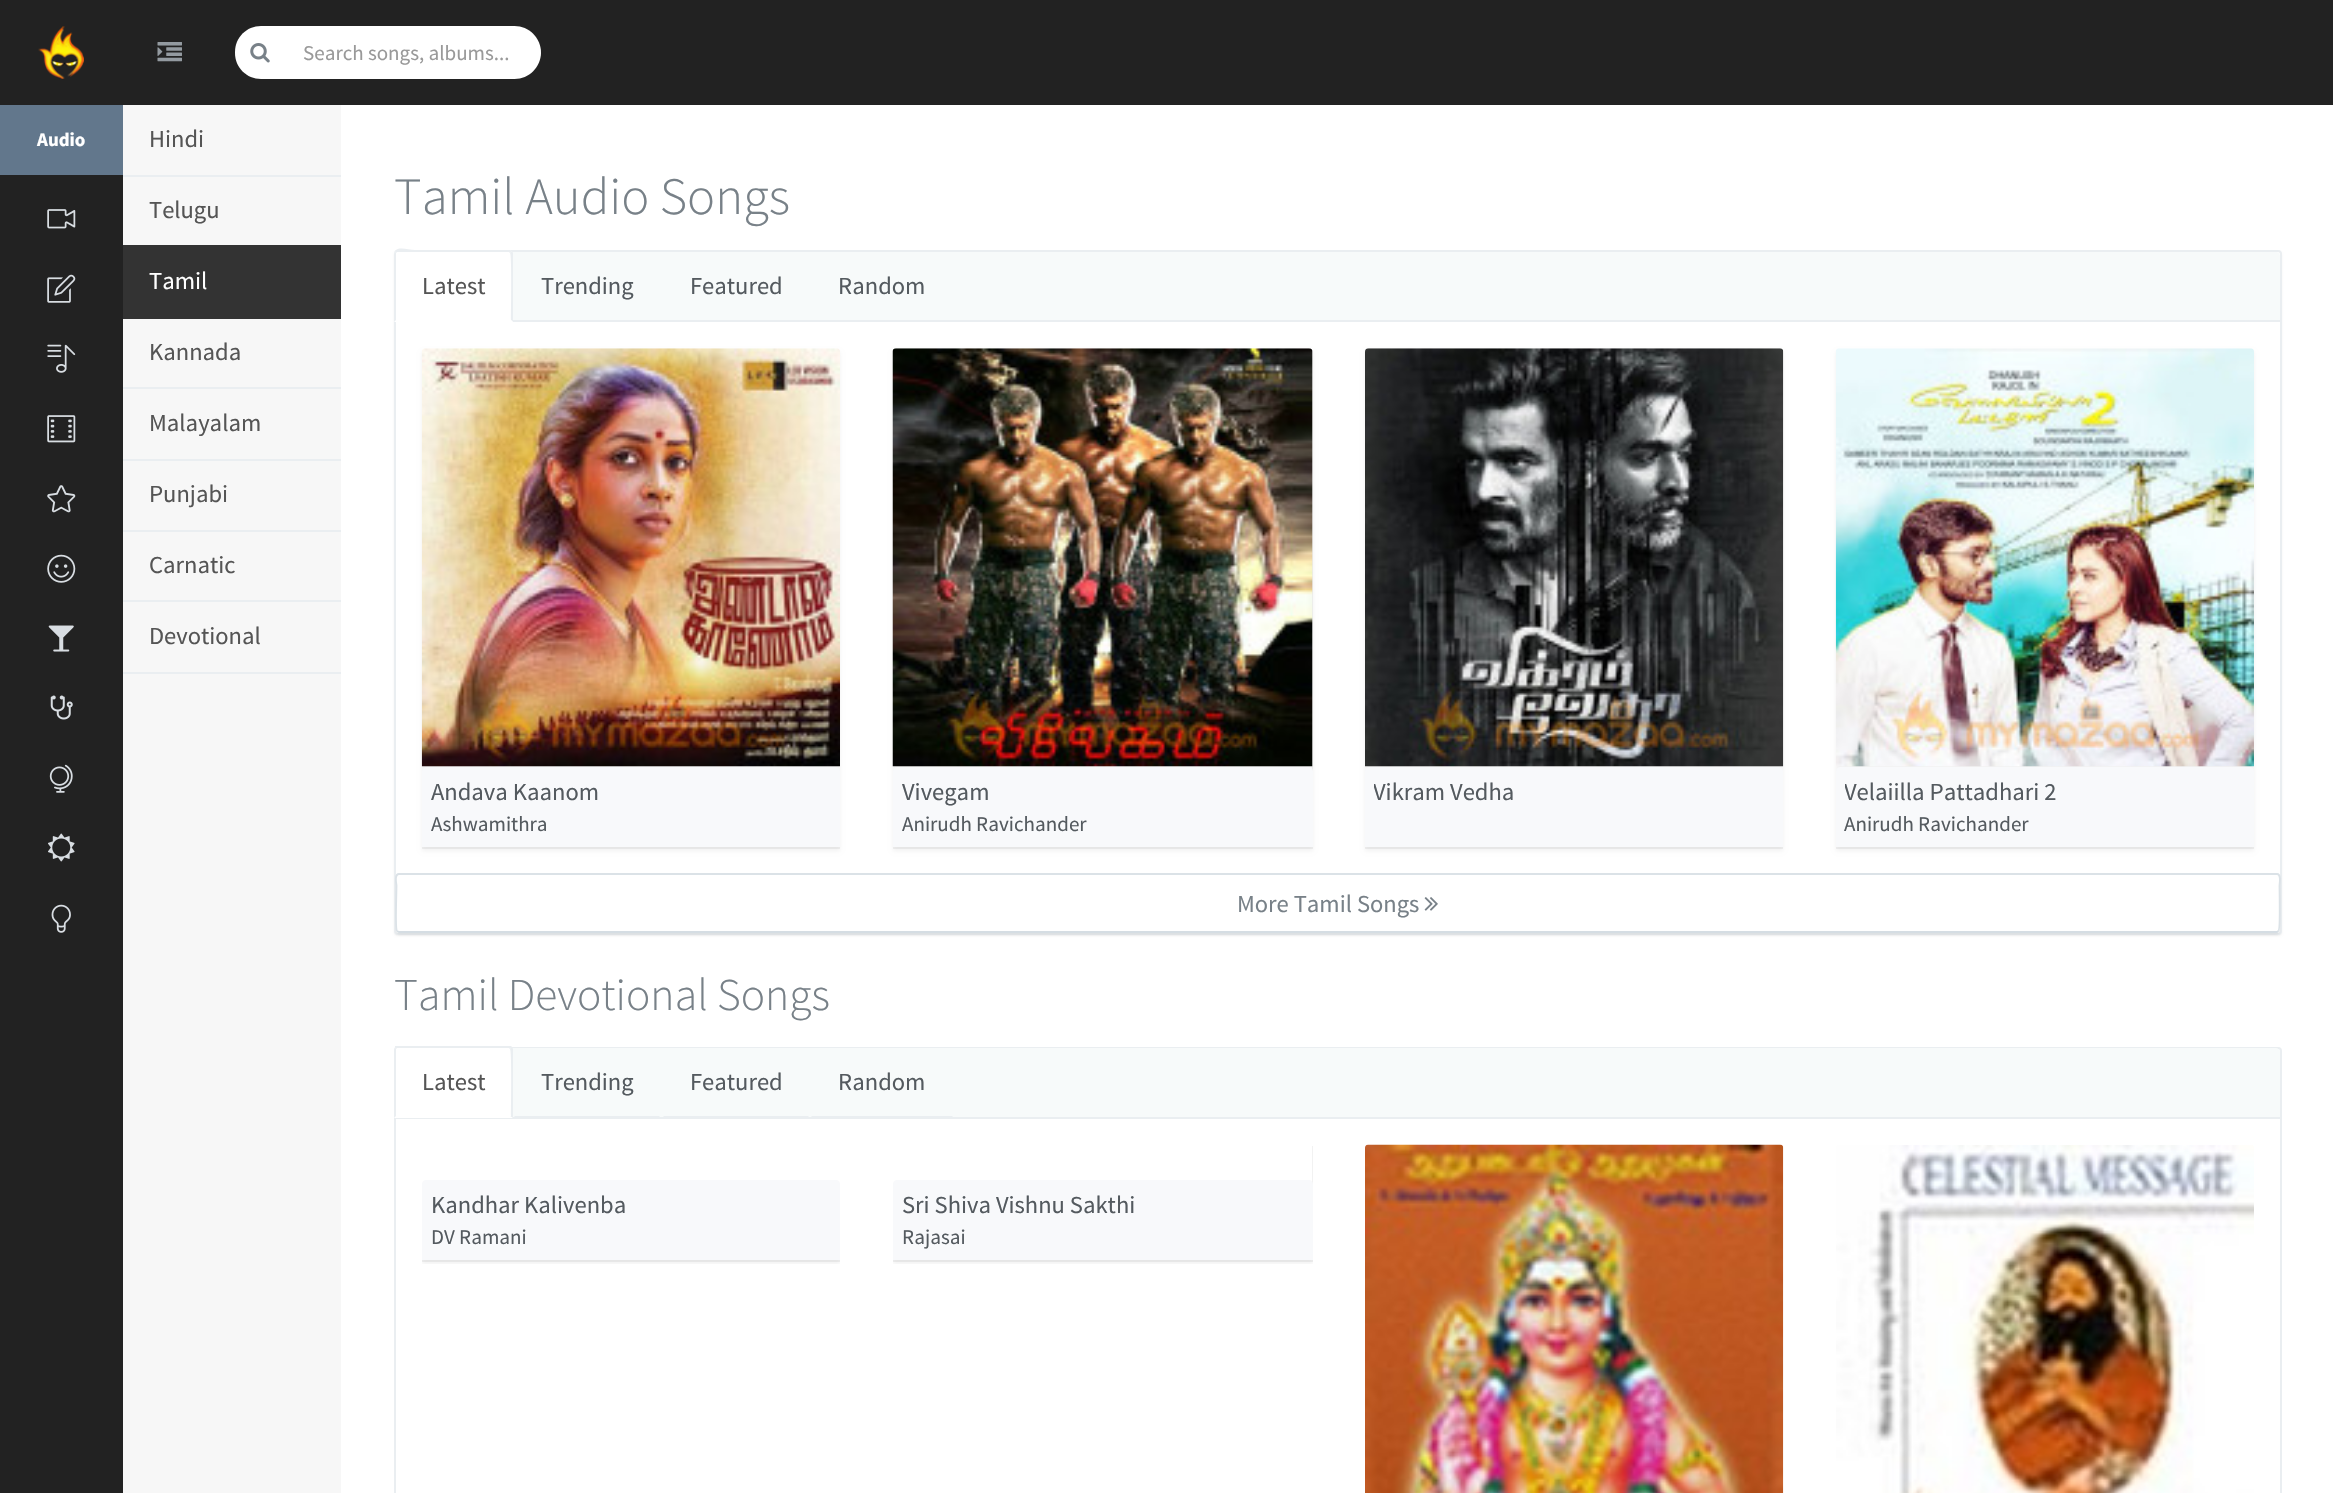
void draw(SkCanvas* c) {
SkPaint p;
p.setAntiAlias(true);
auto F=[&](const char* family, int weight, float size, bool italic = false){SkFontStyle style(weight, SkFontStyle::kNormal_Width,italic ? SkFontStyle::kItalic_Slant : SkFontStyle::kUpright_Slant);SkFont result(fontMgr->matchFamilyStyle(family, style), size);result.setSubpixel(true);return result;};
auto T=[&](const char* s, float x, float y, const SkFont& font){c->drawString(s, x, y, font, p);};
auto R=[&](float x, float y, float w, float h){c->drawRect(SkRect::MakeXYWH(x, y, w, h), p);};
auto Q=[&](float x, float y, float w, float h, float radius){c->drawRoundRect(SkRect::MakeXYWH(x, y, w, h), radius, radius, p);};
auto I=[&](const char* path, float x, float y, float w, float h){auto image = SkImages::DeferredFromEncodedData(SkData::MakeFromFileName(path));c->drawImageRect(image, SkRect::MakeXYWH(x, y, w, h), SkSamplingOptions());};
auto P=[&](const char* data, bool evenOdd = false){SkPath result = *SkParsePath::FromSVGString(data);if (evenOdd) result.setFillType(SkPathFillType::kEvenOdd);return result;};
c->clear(0xffffffff);
p.setColor(0xff222222);
R(0,0,2333,105);
I("1.png",38,26,46,53);
I("2.png",157,42,25,20);
p.setColor(0xffffffff);
c->drawPath(P("M261 26h26v53h-26c-14.5 0-26-11.5-26-26v-1c0-14.5 11.5-26 26-26z"),p);
I("3.png",250,43,20,20);
c->drawPath(P("M285 26h229.5c14.5 0 26.5 12 26.5 26.5c0 14.5-12 26.5-26.5 26.5h-229.5z"),p);
auto f1 = F("Source Sans Pro",400,21);
p.setColor(0xff999999);
T("Search songs, albums...",303,60,f1);
p.setColor(0xff222222);
R(0,175,123,1318);
p.setColor(0xff62778c);
R(0,105,123,70);
auto f2 = F("Source Sans Pro",700,19);
p.setColor(0xffffffff);
T("Audio",37,146,f2);
I("4.png",47,209,29,20);
I("5.png",47,274,29,29);
I("6.png",47,344,29,29);
I("7.png",47,415,29,28);
I("8.png",47,485,29,28);
I("9.png",47,554,29,29);
I("10.png",48,625,26,27);
I("11.png",50,695,23,25);
I("12.png",49,764,24,29);
I("13.png",48,833,27,29);
I("14.png",51,904,20,29);
p.setColor(0xfff7f7f7);
R(123,105,218,1388);
p.setColor(0xffeaeef1);
R(123,175,218,2);
auto f3 = F("Source Sans Pro",400,24.5);
p.setColor(0xff555555);
T("Hindi",149,147,f3);
T("Telugu",149,218,f3);
p.setColor(0xff333333);
R(123,245,218,74);
p.setColor(0xffffffff);
T("Tamil",149,289,f3);
p.setColor(0xffeaeef1);
R(123,387,218,2);
p.setColor(0xff555555);
T("Kannada",149,360,f3);
p.setColor(0xffeaeef1);
R(123,459,218,2);
p.setColor(0xff555555);
T("Malayalam",149,431,f3);
p.setColor(0xffeaeef1);
R(123,530,218,2);
p.setColor(0xff555555);
T("Punjabi",149,502,f3);
p.setColor(0xffeaeef1);
R(123,600,218,2);
p.setColor(0xff555555);
T("Carnatic",149,573,f3);
p.setColor(0xffeaeef1);
R(123,672,218,2);
p.setColor(0xff555555);
T("Devotional",149,644,f3);
auto f4 = F("Source Sans Pro",300,52.5);
p.setColor(0xff788188);
T("Tamil Audio Songs",394,214,f4);
p.setColor(0x0d000000);
p.setMaskFilter(SkMaskFilter::MakeBlur(kNormal_SkBlurStyle, 1));
c->drawRoundRect(SkRect::MakeXYWH(394,252,1888,684),4,4,p);
p.setMaskFilter(nullptr);
p.setColor(0xffffffff);
c->drawRoundRect(SkRect::MakeXYWH(395,251,1886,683),3,3,p);
p.setStroke(true);
p.setStrokeWidth(2);
p.setColor(0xffeaeef1);
c->drawRoundRect(SkRect::MakeXYWH(395,251,1886,683),3,3,p);
p.setStroke(false);
p.setColor(0xfff7fafa);
c->drawPath(P("M400 252h1876c2 0 4 2 4 4v66h-1884v-66c0-2 2-4 4-4z"),p);
p.setColor(0xffeaeef1);
R(513,320,1767,2);
p.setColor(0xffffffff);
c->drawPath(P("M398 250h111c2 0 4 2 4 4v68h-119v-68c0-2 2-4 4-4z"),p);
p.setColor(0xffeaeef1);
c->drawPath(P("M397 252l-1 1l-1-2c4-5 13-1 20-1h95l2 1l-2 2l-1-1z"),p);
c->drawPath(P("M513 253v69l-2-2c0-7 1-66-1-67l2-2z"),p);
p.setColor(0xffffffff);
c->drawPath(P("M513 322l-2-2h-115l-2 2z"),p);
p.setColor(0xffeaeef1);
c->drawPath(P("M394 322v-68l1-3l1 2v67z"),p);
p.setColor(0xff555555);
T("Latest",422,294,f3);
p.setColor(0xff545a5f);
T("Trending",541,294,f3);
T("Featured",690,294,f3);
T("Random",838,294,f3);
p.setColor(0xfff2f2f2);
R(422,847,418,2);
p.setColor(0x0d000000);
p.setMaskFilter(SkMaskFilter::MakeBlur(kNormal_SkBlurStyle, 2));
c->drawRect(SkRect::MakeXYWH(422,352,418,499),p);
p.setMaskFilter(nullptr);
I("15.png",421,348,419,419);
p.setColor(0xfff8f9fb);
c->drawPath(P("M426 767h410c2 0 4 2 4 4v76h-418v-76c0-2 2-4 4-4z"),p);
p.setColor(0xff545a5f);
T("Andava Kaanom",431,800,f3);
T("Ashwamithra",431,831,f1);
p.setColor(0xfff2f2f2);
c->drawPath(P("M893 847v2h420v-499h-1v497z"),p);
p.setColor(0x0d000000);
p.setMaskFilter(SkMaskFilter::MakeBlur(kNormal_SkBlurStyle, 2));
c->drawRect(SkRect::MakeXYWH(893,352,420,499),p);
p.setMaskFilter(nullptr);
I("16.png",892,348,421,419);
p.setColor(0xfff8f9fb);
c->drawPath(P("M897 767h412c2 0 4 2 4 4v76h-420v-76c0-2 2-4 4-4z"),p);
p.setColor(0xff545a5f);
T("Vivegam",902,800,f3);
T("Anirudh Ravichander",902,831,f1);
p.setColor(0xfff2f2f2);
R(1365,847,418,2);
p.setColor(0x0d000000);
p.setMaskFilter(SkMaskFilter::MakeBlur(kNormal_SkBlurStyle, 2));
c->drawRect(SkRect::MakeXYWH(1365,352,418,499),p);
p.setMaskFilter(nullptr);
I("17.png",1365,348,419,419);
p.setColor(0xfff8f9fb);
c->drawPath(P("M1369 767h410c2 0 4 2 4 4v76h-418v-76c0-2 2-4 4-4z"),p);
c->save();
c->clipRect(SkRect::MakeXYWH(1374,775,401,35));
p.setColor(0xff545a5f);
T("Vikram Vedha",1373,800,f3);
c->restore();
p.setColor(0xfff2f2f2);
R(1836,847,418,2);
p.setColor(0x0d000000);
p.setMaskFilter(SkMaskFilter::MakeBlur(kNormal_SkBlurStyle, 2));
c->drawRect(SkRect::MakeXYWH(1836,352,418,499),p);
p.setMaskFilter(nullptr);
I("18.png",1835,348,419,419);
p.setColor(0xfff8f9fb);
c->drawPath(P("M1840 767h410c2 0 4 2 4 4v76h-418v-76c0-2 2-4 4-4z"),p);
c->save();
c->clipRect(SkRect::MakeXYWH(1845,775,400,35));
p.setColor(0xff545a5f);
T("Velaiilla Pattadhari 2",1844,800,f3);
c->restore();
T("Anirudh Ravichander",1844,831,f1);
p.setColor(0x1a5a5a5a);
p.setMaskFilter(SkMaskFilter::MakeBlur(kNormal_SkBlurStyle, 1));
c->drawRoundRect(SkRect::MakeXYWH(396,875,1884,60),4,4,p);
p.setMaskFilter(nullptr);
p.setColor(0xffffffff);
Q(396,873,1884,60,4);
p.setStroke(true);
p.setStrokeWidth(1.8);
p.setColor(0xffd5dde3);
c->drawPath(P("M2278.5 931l-1.5 1h-1878l-2-1"),p);
p.setColor(0xffdbe2e7);
c->drawPath(P("M397 931c-2-2-.5-40-.5-45.5c0-.5-2.5-11.5 2.5-11.5h1878c4.5 0 2.5 11 2.5 11.5c0 5.5 1 43.5-1 45.5"),p);
p.setStroke(false);
p.setColor(0xff788188);
T("More Tamil Songs",1237,912,f3);
I("19.png",1424,897,14,14);
auto f5 = F("Source Sans Pro",300,45.5);
T("Tamil Devotional Songs",394,1010,f5);
p.setStroke(true);
p.setStrokeWidth(2);
p.setColor(0xffeaeef1);
c->drawRoundRect(SkRect::MakeXYWH(395,1048,1886,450),3,3,p);
p.setStroke(false);
p.setColor(0xfff7fafa);
c->drawPath(P("M400 1048h1876c2 0 4 2 4 4v66h-1884v-66c0-2 2-4 4-4z"),p);
p.setColor(0xffeaeef1);
R(396,1117,1884,2);
p.setColor(0xffffffff);
c->drawPath(P("M398 1047h111c2 0 4 2 4 4v67h-119v-67c0-2 2-4 4-4z"),p);
p.setColor(0xffeaeef1);
c->drawPath(P("M397 1048l-1 1l-1-2v-1h116l1 1l-2 2l-1-1z"),p);
c->drawPath(P("M513 1118l-3-2h1c0-7 1-66-1-67l2-2l1 2z"),p);
p.setColor(0xffffffff);
c->drawPath(P("M512 1118h-118l2-2h114z"),p);
p.setColor(0xffeaeef1);
c->drawPath(P("M394 1118l2-2v-67l-1-2l-1 3z"),p);
p.setColor(0xff555555);
T("Latest",422,1090,f3);
p.setColor(0xffeaeef1);
c->drawPath(P("M661 1118h-148l2-2h144z"),p);
p.setColor(0xff545a5f);
T("Trending",541,1090,f3);
p.setColor(0xffeaeef1);
c->drawPath(P("M810 1118l-2-2h-144l-2 2z"),p);
p.setColor(0xff545a5f);
T("Featured",690,1090,f3);
p.setColor(0xffeaeef1);
c->drawPath(P("M954 1118h-144l2-2h140z"),p);
p.setColor(0xff545a5f);
T("Random",838,1090,f3);
p.setColor(0xfff2f2f2);
R(422,1260,418,2);
c->save();
c->clipRect(SkRect::MakeXYWH(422,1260,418,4));
p.setColor(0x0d000000);
p.setMaskFilter(SkMaskFilter::MakeBlur(kNormal_SkBlurStyle, 2));
c->drawRect(SkRect::MakeXYWH(422,1148,418,116),p);
p.setMaskFilter(nullptr);
c->restore();
p.setColor(0xfff8f9fb);
c->drawPath(P("M426 1180h410c2 0 4 2 4 4v76h-418v-76c0-2 2-4 4-4z"),p);
p.setColor(0xff545a5f);
T("Kandhar Kalivenba",431,1213,f3);
T("DV Ramani",431,1244,f1);
p.setColor(0xfff2f2f2);
c->drawPath(P("M893 1260v2h420v-116h-1v114z"),p);
c->save();
c->clipRect(SkRect::MakeXYWH(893,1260,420,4));
p.setColor(0x0d000000);
p.setMaskFilter(SkMaskFilter::MakeBlur(kNormal_SkBlurStyle, 2));
c->drawRect(SkRect::MakeXYWH(893,1148,420,116),p);
p.setMaskFilter(nullptr);
c->restore();
p.setColor(0xfff8f9fb);
c->drawPath(P("M897 1180h412c2 0 4 2 4 4v76h-420v-76c0-2 2-4 4-4z"),p);
p.setColor(0xff545a5f);
T("Sri Shiva Vishnu Sakthi",902,1213,f3);
T("Rajasai",902,1244,f1);
I("20.png",1365,1144,419,349);
I("21.png",1836,1145,418,348);
}
